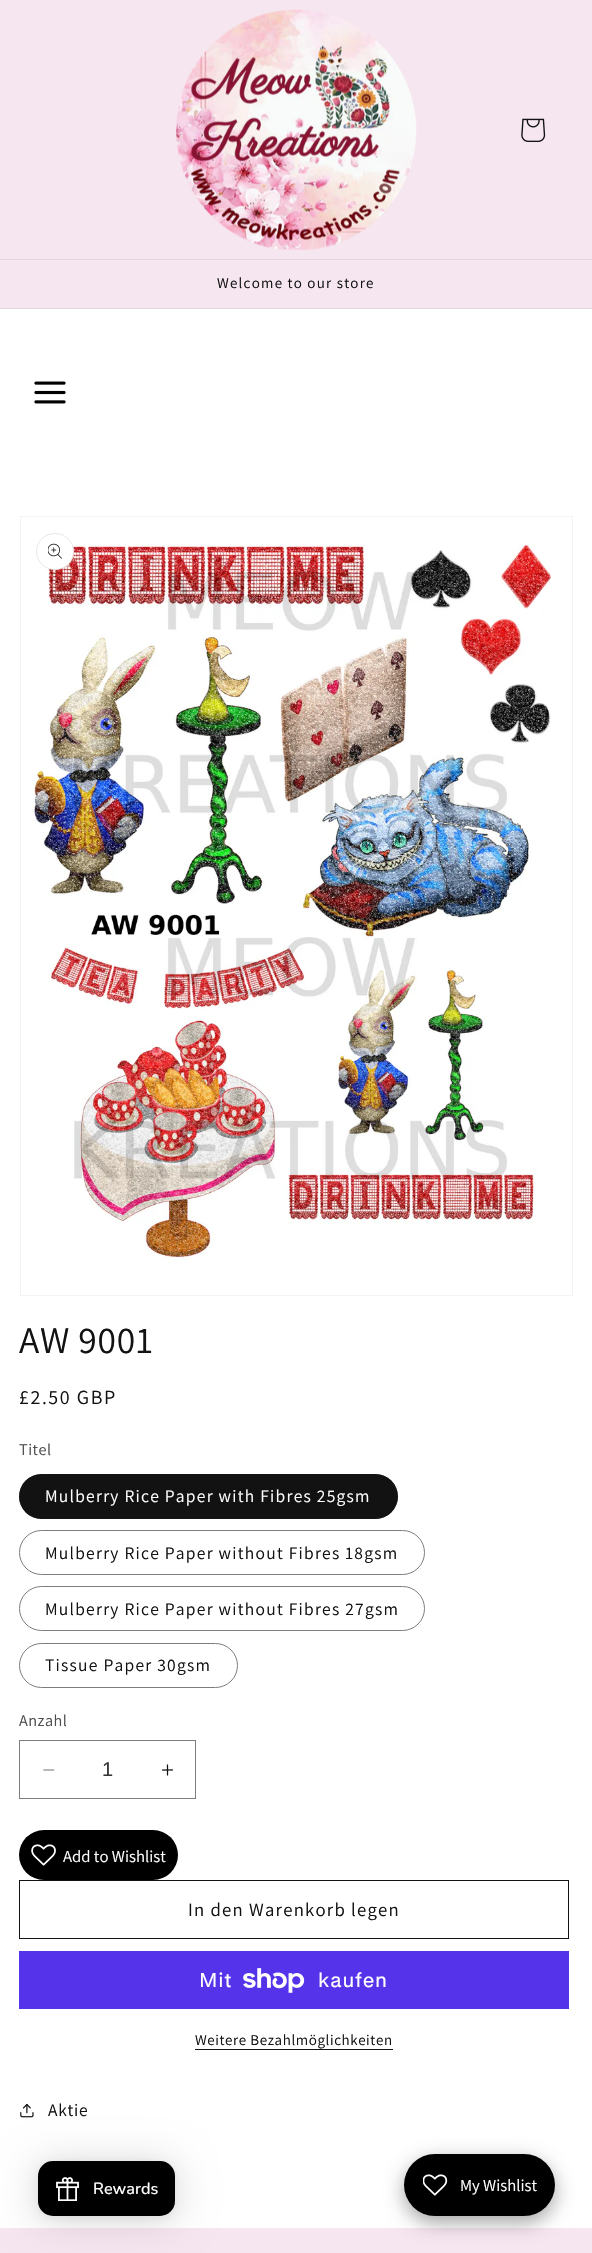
void draw(SkCanvas* c) {
SkPaint p;
p.setAntiAlias(true);
auto F=[&](const char* family, int weight, float size, bool italic = false){SkFontStyle style(weight, SkFontStyle::kNormal_Width,italic ? SkFontStyle::kItalic_Slant : SkFontStyle::kUpright_Slant);SkFont result(fontMgr->matchFamilyStyle(family, style), size);result.setSubpixel(true);return result;};
auto T=[&](const char* s, float x, float y, const SkFont& font){c->drawString(s, x, y, font, p);};
auto L=[&](const char* s, float x, float y, const SkFont& font, const SkPaint& ink, float letter, float word){std::vector<SkGlyphID> glyphs(font.countText(s, strlen(s), SkTextEncoding::kUTF8));std::vector<float> xs(glyphs.size());font.textToGlyphs(s, strlen(s), SkTextEncoding::kUTF8, glyphs);font.getXPos(glyphs, xs, x);float extra = 0;for (size_t i = 0; i < glyphs.size(); i++) {xs[i] += extra;extra += letter + word * (glyphs[i] == font.unicharToGlyph(' '));}c->drawTextBlob(SkTextBlob::MakeFromPosHGlyphs(glyphs, xs, y, font), 0, 0, ink);};
auto R=[&](float x, float y, float w, float h){c->drawRect(SkRect::MakeXYWH(x, y, w, h), p);};
auto Q=[&](float x, float y, float w, float h, float radius){c->drawRoundRect(SkRect::MakeXYWH(x, y, w, h), radius, radius, p);};
auto I=[&](const char* path, float x, float y, float w, float h){auto image = SkImages::DeferredFromEncodedData(SkData::MakeFromFileName(path));c->drawImageRect(image, SkRect::MakeXYWH(x, y, w, h), SkSamplingOptions());};
c->clear(0xffffffff);
p.setColor(0xfff6e6f0);
R(0,0,592,259);
p.setColor(0xffe4d5de);
R(0,259,592,1);
I("1.png",176,9,241,241);
I("2.png",521,118,25,24);
p.setColor(0xfff6e6f0);
R(0,260,592,48);
p.setColor(0xffe4d5de);
R(0,308,592,1);
auto f1 = F("Assistant",400,15);
p.setColor(0xff121212);
L("Welcome to our store",217,288,f1,p,1.25,0);
I("3.png",34,381,32,23);
p.setStroke(true);
p.setStrokeWidth(1);
p.setColor(0xfff3f3f3);
c->drawRect(SkRect::MakeXYWH(20.5,516.5,552,779),p);
I("5.png",32,544,519,716);
p.setStroke(false);
p.setColor(0xffffffff);
Q(36,533,38,37,18.5);
p.setStroke(true);
p.setColor(0x1a121212);
c->drawRoundRect(SkRect::MakeXYWH(36.5,533.5,37,36),18,18,p);
I("4.png",48,543,14,16);
auto f2 = F("Assistant",400,37.5);
p.setStroke(false);
p.setColor(0xff121212);
L("AW 9001",19,1353,f2,p,.75,0);
auto f3 = F("Assistant",400,20);
L("£2.50 GBP",19,1404,f3,p,1.6,0);
auto f4 = F("Assistant",400,16.25);
p.setColor(0xff4d4d4d);
L("Titel",19,1455,f4,p,.5,0);
p.setColor(0xff121212);
Q(19,1474,379,45,22.5);
p.setStroke(true);
p.setColor(0x8c121212);
c->drawRoundRect(SkRect::MakeXYWH(19.5,1474.5,378,44),22,22,p);
auto f5 = F("Assistant",400,17.5);
p.setStroke(false);
p.setColor(0xffffffff);
L("Mulberry Rice Paper with Fibres 25gsm",45,1502,f5,p,1.25,0);
p.setStroke(true);
p.setColor(0xff7d7d7d);
c->drawRoundRect(SkRect::MakeXYWH(19.5,1530.5,405,44),22,22,p);
p.setStroke(false);
p.setColor(0xff121212);
L("Mulberry Rice Paper without Fibres 18gsm",45,1559,f5,p,1.25,0);
p.setStroke(true);
p.setColor(0xff7d7d7d);
c->drawRoundRect(SkRect::MakeXYWH(19.5,1586.5,405,44),22,22,p);
p.setStroke(false);
p.setColor(0xff121212);
L("Mulberry Rice Paper without Fibres 27gsm",45,1615,f5,p,1.25,0);
p.setStroke(true);
p.setColor(0xff7d7d7d);
c->drawRoundRect(SkRect::MakeXYWH(19.5,1643.5,218,44),22,22,p);
p.setStroke(false);
p.setColor(0xff121212);
L("Tissue Paper 30gsm",45,1671,f5,p,1.25,0);
p.setColor(0xff4d4d4d);
L("Anzahl",19,1726,f4,p,.5,0);
I("6.png",43,1769,12,2);
I("7.png",162,1764,12,12);
p.setStroke(true);
p.setColor(0xff7d7d7d);
c->drawRect(SkRect::MakeXYWH(19.5,1740.5,176,58),p);
auto f6 = F("Liberation Sans",400,20);
p.setStroke(false);
p.setColor(0xff363636);
T("1",102,1776,f6);
p.setColor(0xff000000);
Q(19,1830,159,50,25);
I("8.png",31,1844,25,22);
auto f7 = F("Assistant",400,16.75);
p.setColor(0xffffffff);
T("Add to Wishlist",63,1862,f7);
p.setStroke(true);
p.setColor(0xff121212);
c->drawRect(SkRect::MakeXYWH(19.5,1880.5,549,58),p);
auto f8 = F("Assistant",400,18.75);
p.setStroke(false);
L("In den Warenkorb legen",188,1916,f8,p,1.25,0);
p.setColor(0xff5433eb);
R(19,1951,550,58);
auto f9 = F("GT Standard",400,20);
p.setColor(0xffffffff);
L("Mit",199,1987,f9,p,.75,0);
I("9.png",243,1968,62,25);
L("kaufen",318,1987,f9,p,.75,0);
p.setColor(0xff121212);
L("Weitere Bezahlmöglichkeiten",195,2045,f1,p,.6,0);
R(195,2049,198,1);
I("10.png",20,2103,14,15);
L("Aktie",48,2116,f5,p,.75,0);
p.setColor(0xfff6e6f0);
R(0,2228,592,25);
p.setColor(0x29000000);
p.setMaskFilter(SkMaskFilter::MakeBlur(kNormal_SkBlurStyle, 20));
c->drawRoundRect(SkRect::MakeXYWH(38,2164,137,55),15,15,p);
p.setMaskFilter(nullptr);
p.setColor(0x0f000000);
p.setMaskFilter(SkMaskFilter::MakeBlur(kNormal_SkBlurStyle, 4));
c->drawRoundRect(SkRect::MakeXYWH(38,2163,137,55),15,15,p);
p.setMaskFilter(nullptr);
p.setColor(0xff000000);
Q(38,2161,137,55,15);
I("11.png",56,2177,23,24);
auto f10 = F("Nunito",500,16.25);
p.setColor(0xffffffff);
T("Rewards",93,2194,f10);
p.setColor(0x59000000);
p.setMaskFilter(SkMaskFilter::MakeBlur(kNormal_SkBlurStyle, 9.5));
c->drawRoundRect(SkRect::MakeXYWH(404,2160,151,63),31.5,31.5,p);
p.setMaskFilter(nullptr);
p.setColor(0xff000000);
Q(404,2154,151,62,31);
I("12.png",423,2174,25,22);
p.setColor(0xffffffff);
T("My Wishlist",460,2191,f7);
}
